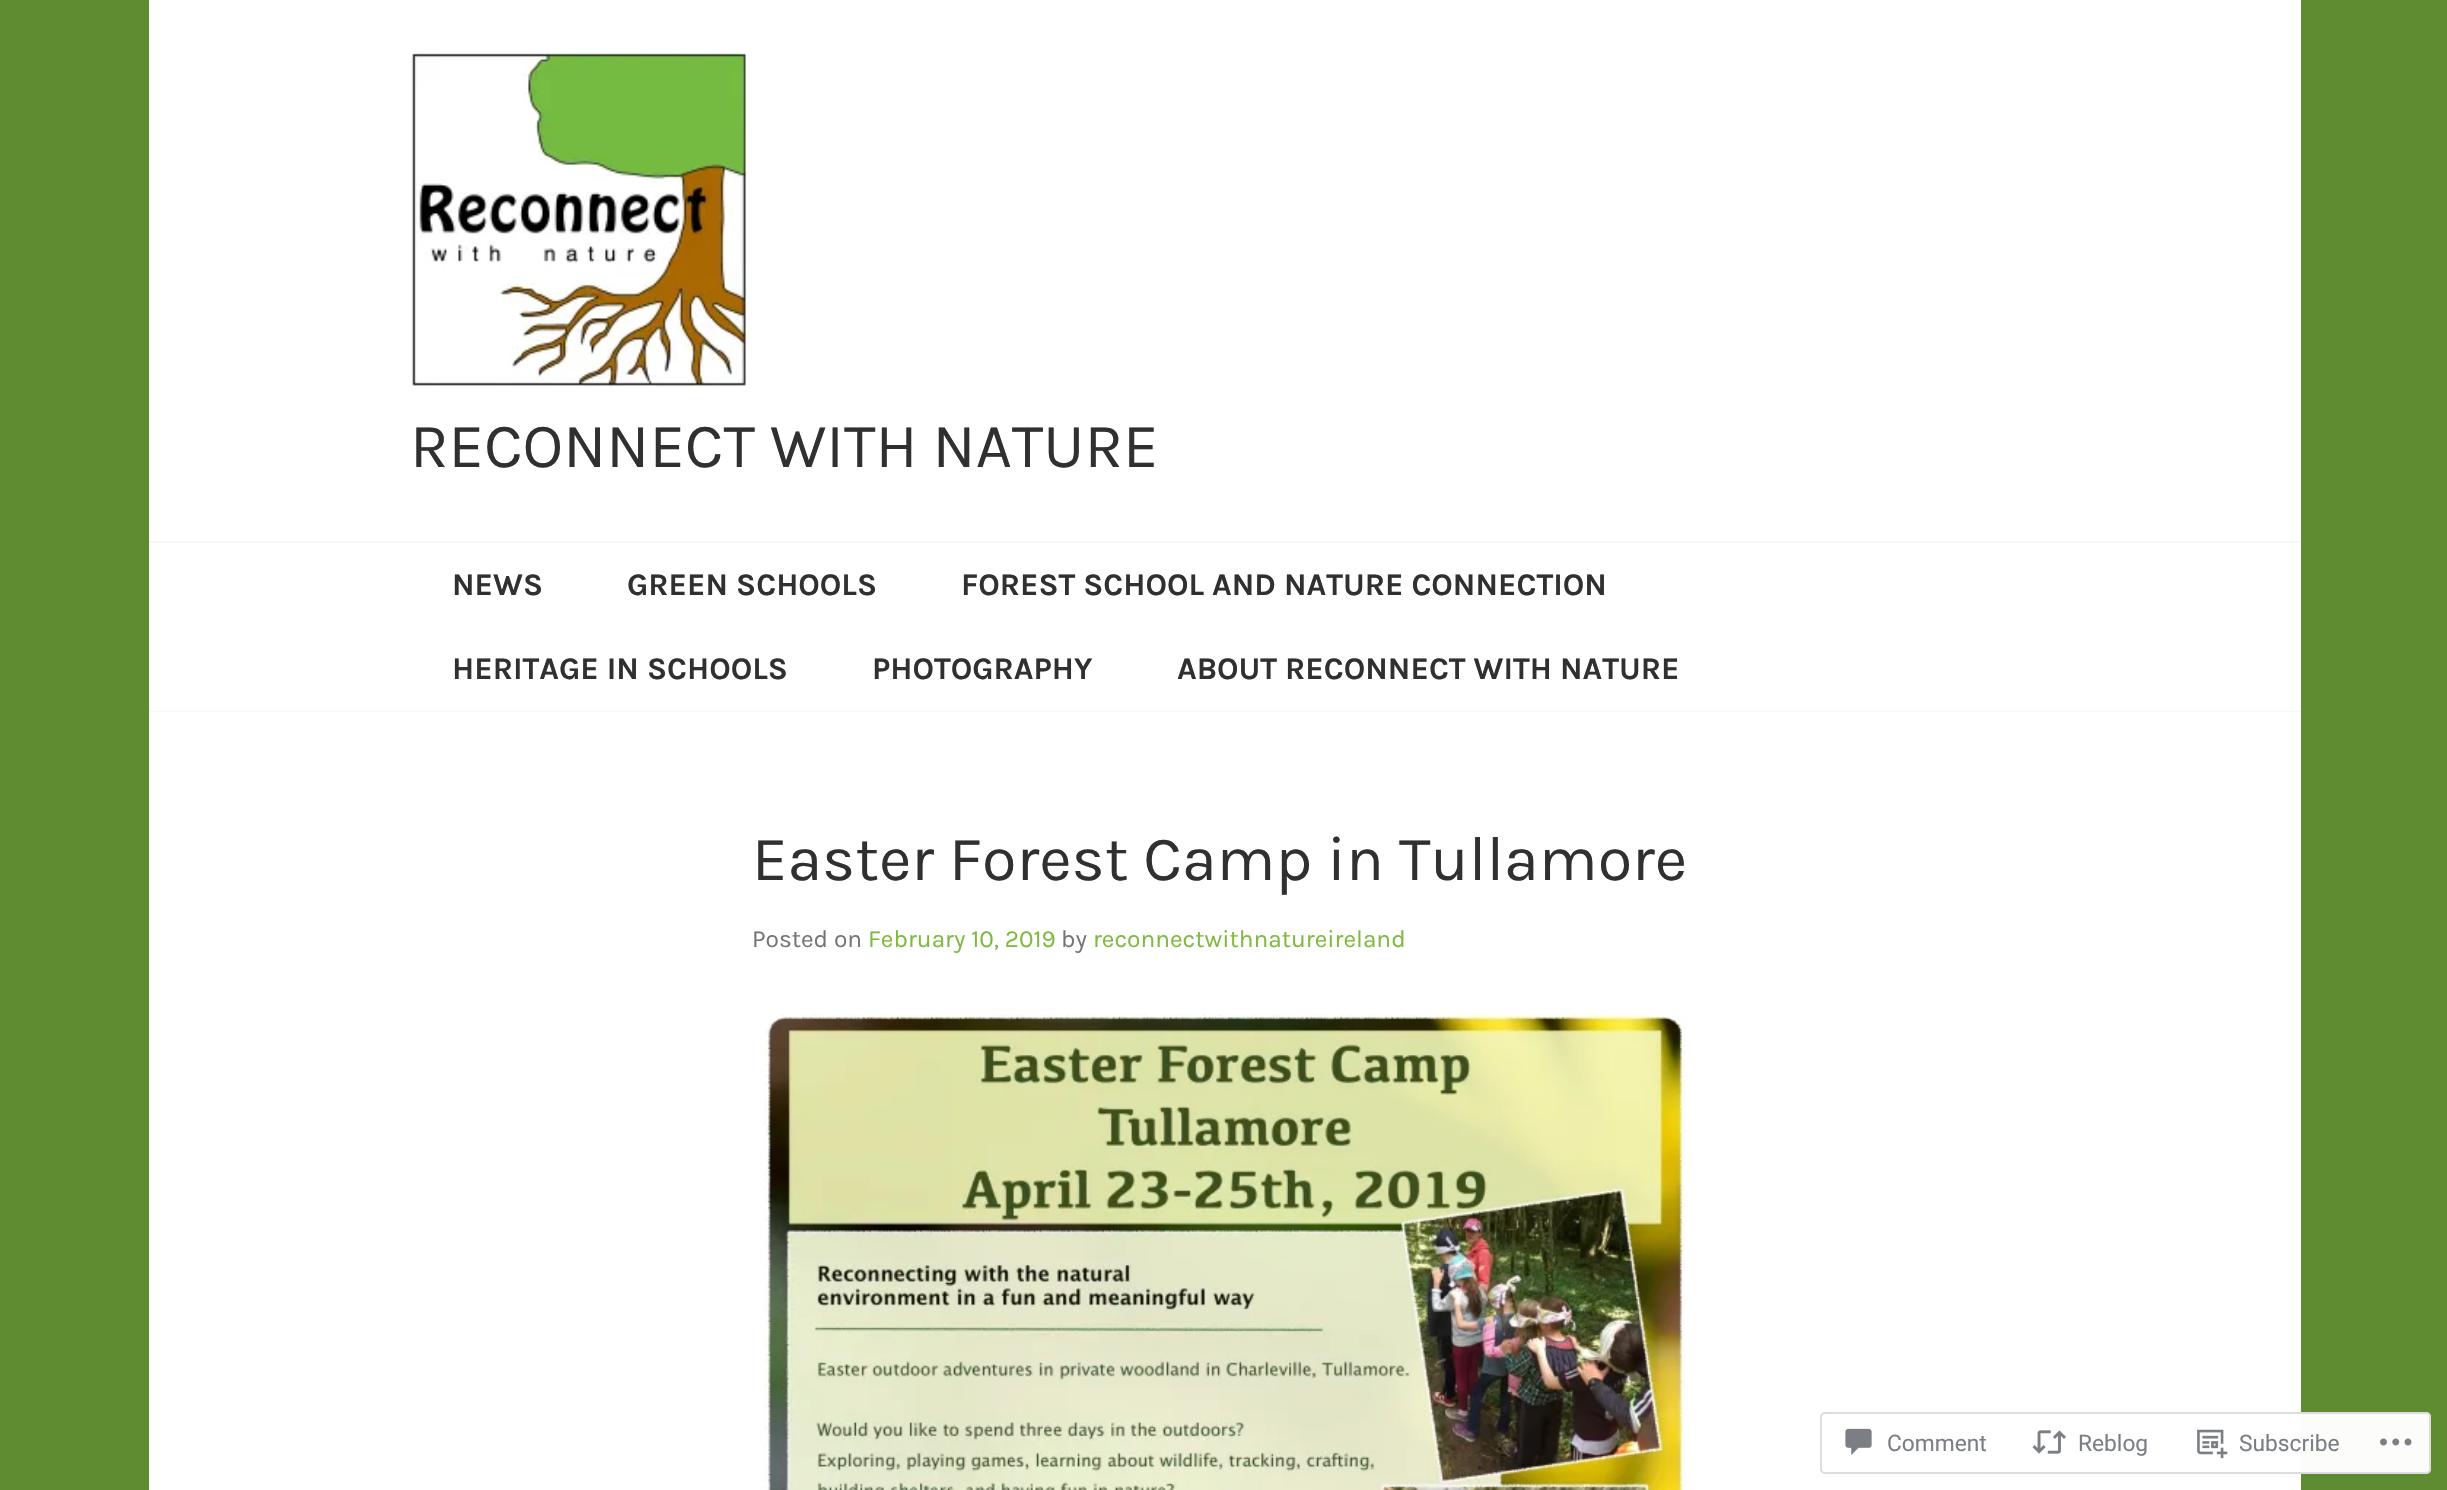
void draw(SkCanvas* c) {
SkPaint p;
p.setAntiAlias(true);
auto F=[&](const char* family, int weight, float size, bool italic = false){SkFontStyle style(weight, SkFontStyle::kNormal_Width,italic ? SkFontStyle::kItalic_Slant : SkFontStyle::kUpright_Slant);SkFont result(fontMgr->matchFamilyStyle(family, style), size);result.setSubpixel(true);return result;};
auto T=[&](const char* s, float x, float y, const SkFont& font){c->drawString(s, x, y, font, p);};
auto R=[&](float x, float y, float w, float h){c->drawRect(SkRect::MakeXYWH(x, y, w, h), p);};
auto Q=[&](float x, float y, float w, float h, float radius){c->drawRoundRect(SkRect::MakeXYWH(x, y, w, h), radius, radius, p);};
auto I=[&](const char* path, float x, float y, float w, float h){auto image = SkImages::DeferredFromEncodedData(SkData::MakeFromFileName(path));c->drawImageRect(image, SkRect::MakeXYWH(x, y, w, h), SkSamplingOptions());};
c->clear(0xff5f8c30);
p.setColor(0xffffffff);
R(149,0,2152,711);
p.setColor(0xfff8f8f8);
R(149,711,2152,1);
I("1.png",411,52,337,335);
auto f1 = F("Karla",400,63);
p.setColor(0xff303030);
T("RECONNECT WITH NATURE",410,467,f1);
p.setColor(0xfff8f8f8);
R(149,541,2152,2);
auto f2 = F("Karla",700,31.5);
p.setColor(0xff303030);
T("NEWS",452,595,f2);
T("GREEN SCHOOLS",627,595,f2);
T("FOREST SCHOOL AND NATURE CONNECTION",961,595,f2);
T("HERITAGE IN SCHOOLS",452,679,f2);
T("PHOTOGRAPHY",872,679,f2);
T("ABOUT RECONNECT WITH NATURE",1177,679,f2);
p.setColor(0xffffffff);
R(149,712,2152,778);
p.setColor(0xff303030);
T("Easter Forest Camp in Tullamore",752,880,f1);
auto f3 = F("Karla",400,24.5);
p.setColor(0xff757575);
T("Posted on",752,947,f3);
p.setColor(0xff7eb940);
T("February 10, 2019",868,947,f3);
p.setColor(0xff757575);
T("by",1061,947,f3);
p.setColor(0xff7eb940);
T("reconnectwithnatureireland",1093,947,f3);
I("2.png",764,1014,922,476);
p.setColor(0xfaffffff);
Q(1820,1412,611,62,5);
p.setStroke(true);
p.setStrokeWidth(2);
p.setColor(0xfadcdcde);
c->drawRoundRect(SkRect::MakeXYWH(1821,1413,609,60),4,4,p);
I("3.png",1845,1428,27,27);
auto f4 = F("Roboto",400,22.75);
p.setStroke(false);
p.setColor(0xff7b7f85);
T("Comment",1887,1451,f4);
I("4.png",2032,1430,34,24);
T("Reblog",2078,1451,f4);
I("5.png",2197,1429,31,30);
T("Subscribe",2239,1451,f4);
I("6.png",2380,1438,32,8);
}
